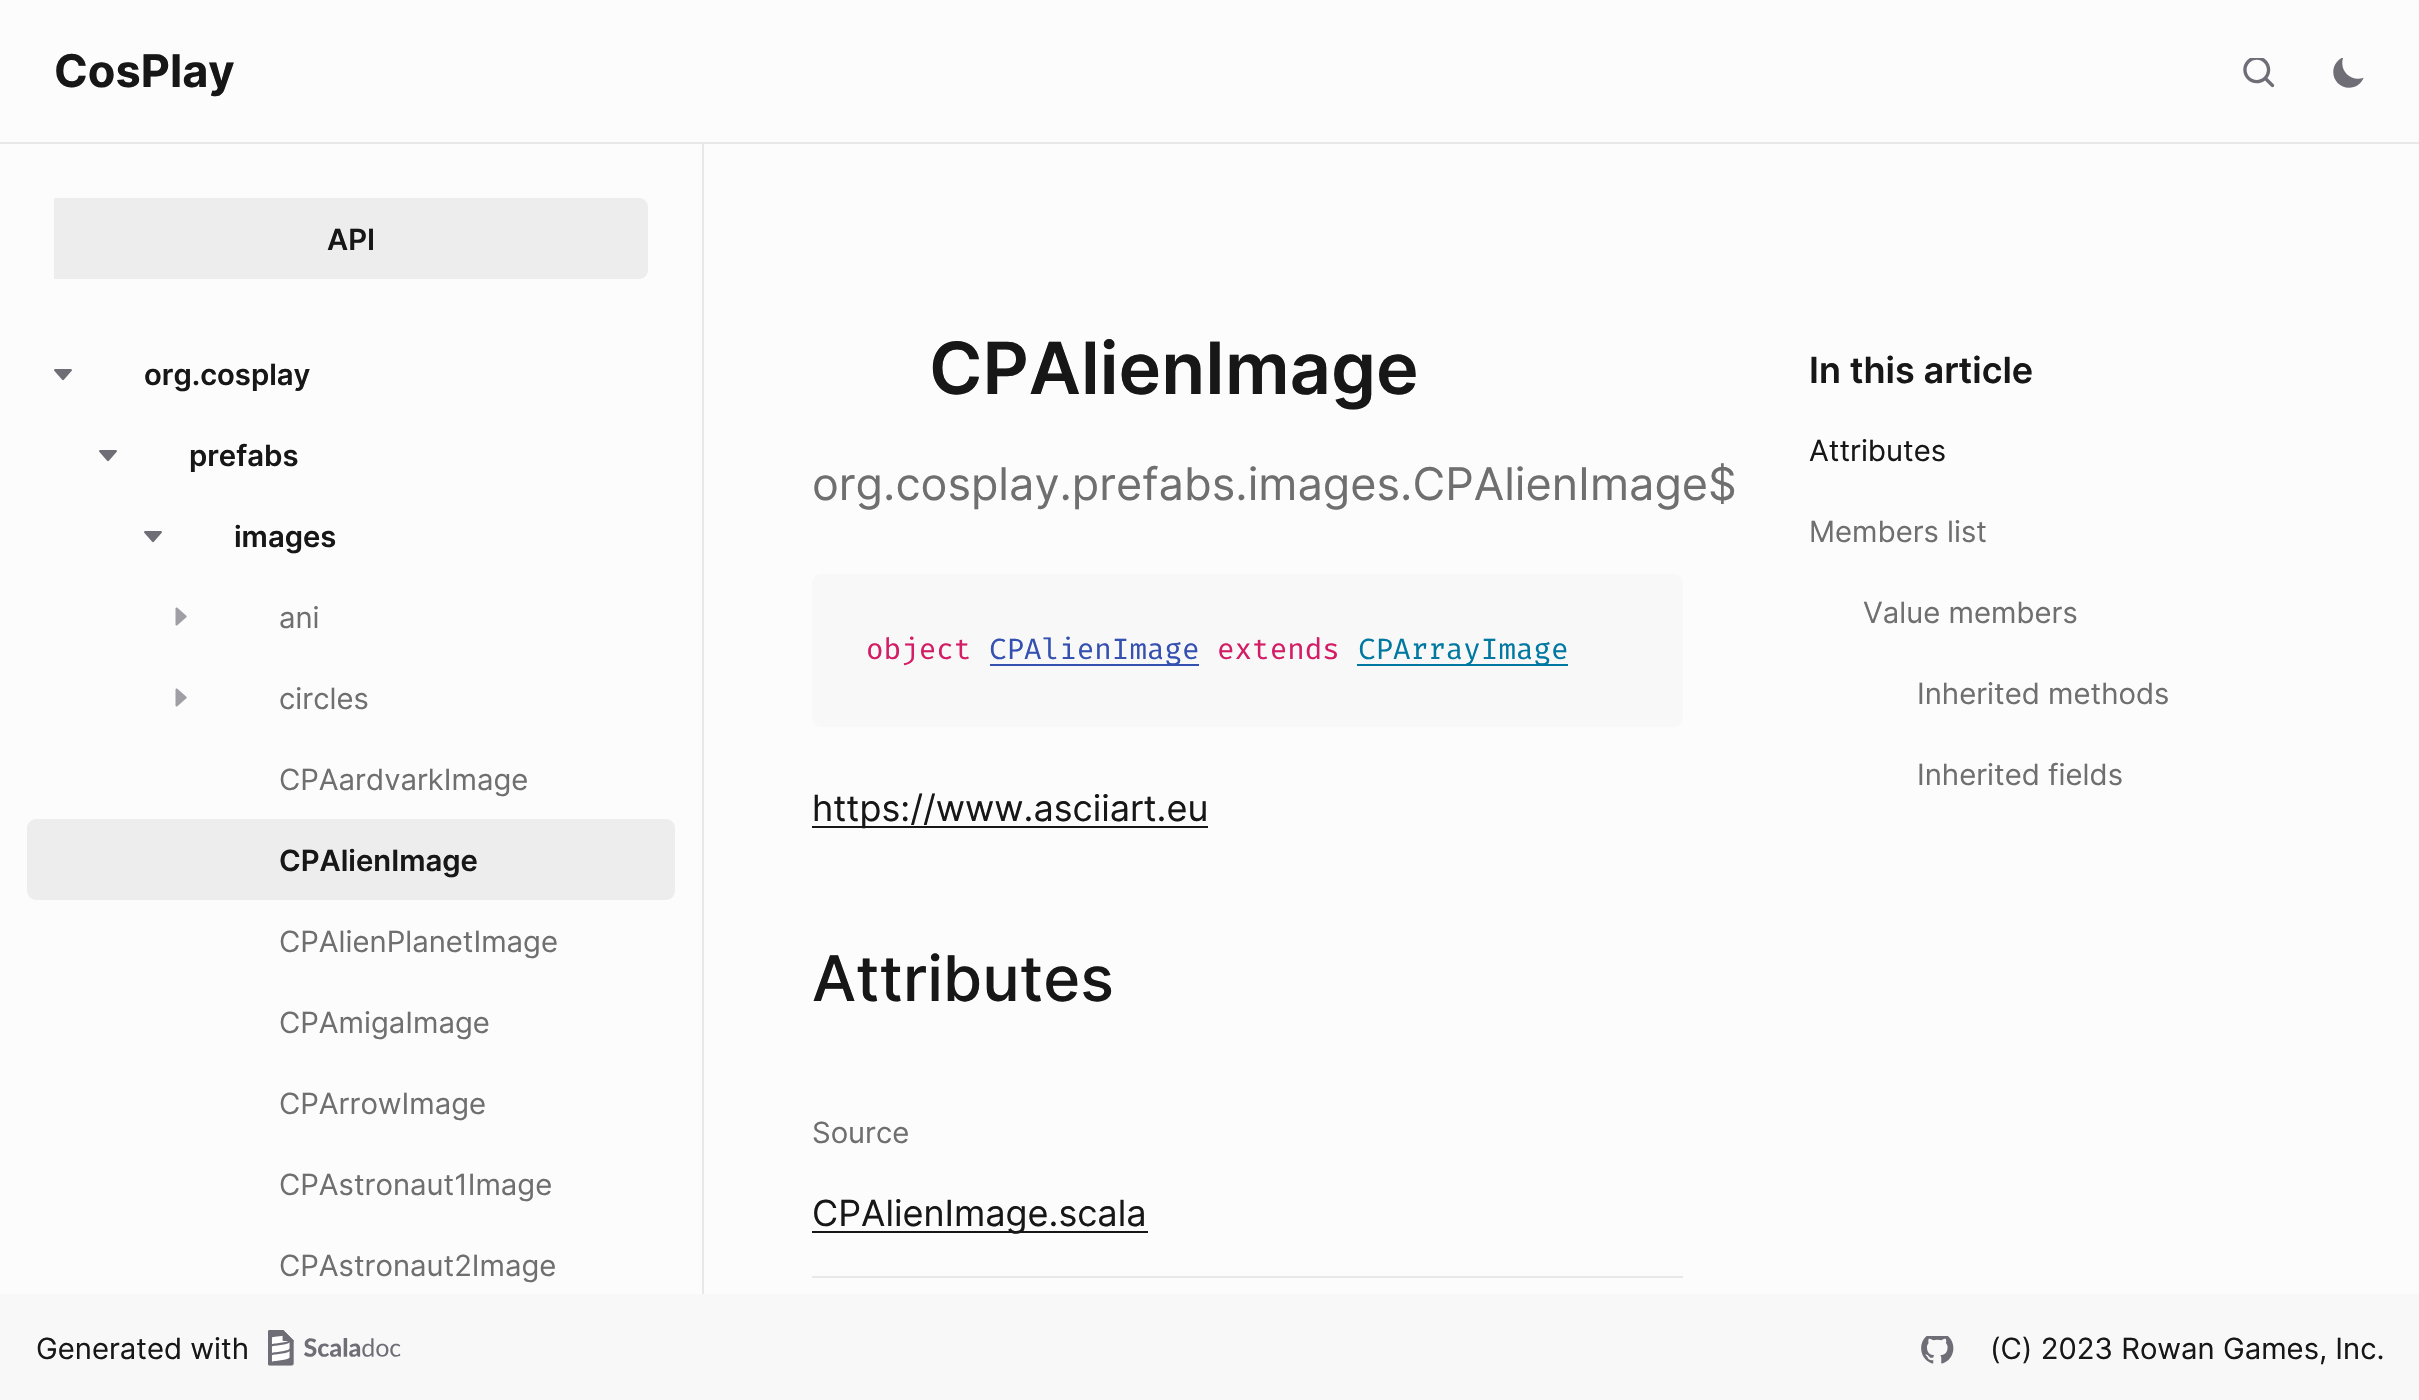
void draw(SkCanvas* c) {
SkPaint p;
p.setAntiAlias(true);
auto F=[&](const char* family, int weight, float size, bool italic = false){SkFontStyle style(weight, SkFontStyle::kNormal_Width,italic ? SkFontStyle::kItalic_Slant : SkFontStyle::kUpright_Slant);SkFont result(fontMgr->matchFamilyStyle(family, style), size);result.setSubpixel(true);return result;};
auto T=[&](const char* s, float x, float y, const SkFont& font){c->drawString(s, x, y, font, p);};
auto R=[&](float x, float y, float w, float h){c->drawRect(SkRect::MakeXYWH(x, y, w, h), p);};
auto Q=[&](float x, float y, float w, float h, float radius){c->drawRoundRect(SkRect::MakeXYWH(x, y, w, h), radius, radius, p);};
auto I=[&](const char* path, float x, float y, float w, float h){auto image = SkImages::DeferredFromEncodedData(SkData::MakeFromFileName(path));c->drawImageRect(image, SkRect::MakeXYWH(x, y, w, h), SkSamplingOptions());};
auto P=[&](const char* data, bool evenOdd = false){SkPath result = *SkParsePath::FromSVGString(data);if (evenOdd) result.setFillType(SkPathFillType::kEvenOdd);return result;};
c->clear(0xfffcfcfc);
p.setColor(0xffe8e8e8);
R(0,142,2419,2);
auto f1 = F("Inter",700,45);
p.setColor(0xff171717);
T("CosPlay",54,87,f1);
I("1.png",2243,58,32,30);
I("2.png",2333,58,31,30);
p.setColor(0xffe8e8e8);
R(702,144,2,1152);
p.setColor(0xffededed);
c->drawPath(P("M54 198h585c5 0 9 4 9 9v63c0 5-4 9-9 9h-585z"),p);
auto f2 = F("Inter",600,29.25);
p.setColor(0xff171717);
T("API",327,250,f2);
I("3.png",54,369,18,12);
T("org.cosplay",144,385,f2);
I("3.png",99,450,18,12);
T("prefabs",189,466,f2);
I("3.png",144,531,18,12);
T("images",234,547,f2);
I("4.png",175,607,12,19);
auto f3 = F("Inter",400,29.25);
p.setColor(0xff6f6f6f);
T("ani",279,628,f3);
I("4.png",175,688,12,19);
T("circles",279,709,f3);
T("CPAardvarkImage",279,790,f3);
p.setColor(0xffededed);
Q(27,819,648,81,9);
p.setColor(0xff171717);
T("CPAlienImage",279,871,f2);
p.setColor(0xff6f6f6f);
T("CPAlienPlanetImage",279,952,f3);
T("CPAmigaImage",279,1033,f3);
T("CPArrowImage",279,1114,f3);
T("CPAstronaut1Image",279,1195,f3);
T("CPAstronaut2Image",279,1276,f3);
auto f4 = F("Inter",600,72);
p.setColor(0xff171717);
T("CPAlienImage",929,394,f4);
auto f5 = F("Inter",400,45);
p.setColor(0xff6f6f6f);
T("org.cosplay.prefabs.images.CPAlienImage$",812,500,f5);
p.setColor(0xfff8f8f8);
Q(812,574,871,153,9);
auto f6 = F("Fira Code",400,29.25);
p.setColor(0xffd31e66);
T("object",866,659,f6);
p.setColor(0xff3451b2);
R(990,664,209,2);
T("CPAlienImage",989,659,f6);
p.setColor(0xffd31e66);
T("extends",1217,659,f6);
p.setColor(0xff0078a1);
R(1357,664,211,2);
T("CPArrayImage",1358,659,f6);
p.setColor(0xff171717);
R(812,826,396,2);
auto f7 = F("Inter",400,36);
T("https://www.asciiart.eu",812,821,f7);
auto f8 = F("Inter",500,63);
T("Attributes",812,1001,f8);
p.setColor(0xff6f6f6f);
T("Source",812,1143,f3);
p.setColor(0xff171717);
R(812,1231,336,2);
T("CPAlienImage.scala",812,1226,f7);
p.setColor(0xffe8e8e8);
R(812,1276,871,2);
auto f9 = F("Inter",600,36);
p.setColor(0xff171717);
T("In this article",1809,383,f9);
T("Attributes",1809,461,f3);
p.setColor(0xff6f6f6f);
T("Members list",1809,542,f3);
T("Value members",1863,623,f3);
T("Inherited methods",1917,704,f3);
T("Inherited fields",1917,785,f3);
p.setColor(0xfff8f8f8);
R(0,1294,2419,106);
p.setColor(0xff171717);
T("Generated with",36,1359,f3);
I("5.png",268,1330,133,36);
I("6.png",1921,1336,33,28);
T("(C) 2023 Rowan Games, Inc.",1990,1359,f3);
}
